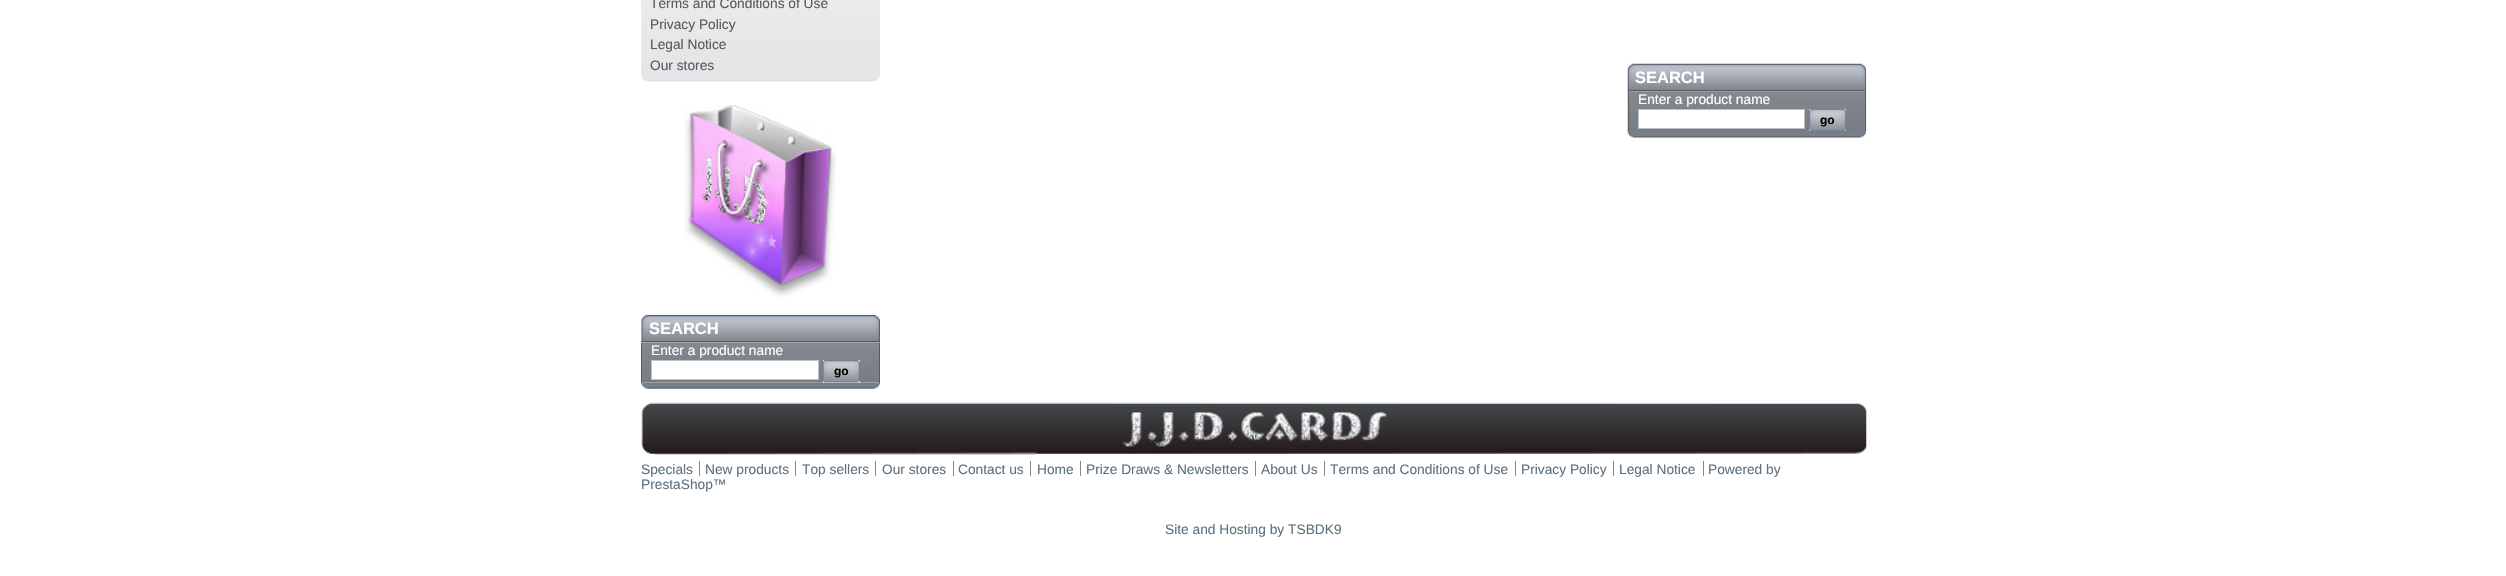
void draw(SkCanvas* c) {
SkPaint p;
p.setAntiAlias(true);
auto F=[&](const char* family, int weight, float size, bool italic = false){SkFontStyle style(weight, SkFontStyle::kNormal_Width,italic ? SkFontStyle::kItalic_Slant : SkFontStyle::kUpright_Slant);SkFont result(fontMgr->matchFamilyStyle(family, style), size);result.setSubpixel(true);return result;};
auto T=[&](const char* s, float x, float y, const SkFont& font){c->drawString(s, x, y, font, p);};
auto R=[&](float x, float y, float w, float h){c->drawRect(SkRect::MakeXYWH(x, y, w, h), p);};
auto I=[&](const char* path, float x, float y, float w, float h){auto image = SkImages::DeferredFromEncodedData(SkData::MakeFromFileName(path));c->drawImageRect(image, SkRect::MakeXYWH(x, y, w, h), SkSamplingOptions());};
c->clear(0xffffffff);
I("1.png",641,75,239,7);
p.setColor(0xfff1f2f4);
R(641,0,1,75);
I("2.png",641,0,239,75);
auto f1 = F("Liberation Sans",400,13.75);
p.setColor(0xff595a5e);
T("Terms and Conditions of Use",650,8,f1);
T("Privacy Policy",650,29,f1);
T("Legal Notice",650,49,f1);
T("Our stores",650,70,f1);
I("3.png",684,105,153,192);
I("4.png",641,383,239,6);
I("5.png",641,315,239,28);
R(641,341,239,1);
auto f2 = F("Liberation Sans",700,16.5);
p.setColor(0xffffffff);
T("SEARCH",649,334,f2);
p.setColor(0xffbdc2c9);
R(642,382,237,1);
I("6.png",641,342,239,41);
p.setColor(0xff595a5e);
R(879,343,1,40);
R(641,343,1,40);
p.setColor(0xffffffff);
T("Enter a product name",651,355,f1);
c->drawRect(SkRect::MakeXYWH(651.5,360.5,167,19),p);
p.setStroke(true);
p.setStrokeWidth(1);
p.setColor(0xffbdc2c9);
c->drawRect(SkRect::MakeXYWH(651.5,360.5,167,19),p);
p.setStroke(false);
p.setColor(0xffefefef);
R(823,360,37,23);
I("7.png",822,360,38,23);
auto f3 = F("Liberation Sans",700,12);
p.setColor(0xff000000);
T("go",834,375,f3);
I("8.png",1627,130,240,8);
I("9.png",1627,63,240,29);
p.setColor(0xff595a5e);
R(1628,90,238,1);
p.setColor(0xffffffff);
T("SEARCH",1635,83,f2);
I("10.png",1627,91,240,41);
p.setColor(0xff595a5e);
R(1865,91,1,40);
R(1628,91,1,40);
p.setColor(0xffffffff);
T("Enter a product name",1638,104,f1);
c->drawRect(SkRect::MakeXYWH(1638.5,109.5,166,19),p);
p.setStroke(true);
p.setColor(0xffbdc2c9);
c->drawRect(SkRect::MakeXYWH(1638.5,109.5,166,19),p);
p.setStroke(false);
p.setColor(0xffefefef);
R(1809,109,37,22);
I("11.png",1809,108,37,23);
p.setColor(0xff000000);
T("go",1820,124,f3);
I("12.png",641,402,1226,53);
p.setColor(0xff5d717e);
T("Specials",641,474,f1);
T("New products",705,474,f1);
p.setColor(0xff888888);
R(699,461,1,15);
p.setColor(0xff5d717e);
T("Top sellers",802,474,f1);
p.setColor(0xff888888);
R(795,461,1,15);
p.setColor(0xff5d717e);
T("Our stores",882,474,f1);
p.setColor(0xff888888);
R(875,461,1,15);
p.setColor(0xff5d717e);
T("Contact us",958,474,f1);
p.setColor(0xff888888);
R(953,461,1,15);
p.setColor(0xff5d717e);
T("Home",1037,474,f1);
p.setColor(0xff888888);
R(1030,461,1,15);
p.setColor(0xff5d717e);
T("Prize Draws & Newsletters",1086,474,f1);
p.setColor(0xff888888);
R(1080,461,1,15);
p.setColor(0xff5d717e);
T("About Us",1261,474,f1);
p.setColor(0xff888888);
R(1255,461,1,15);
p.setColor(0xff5d717e);
T("Terms and Conditions of Use",1330,474,f1);
p.setColor(0xff888888);
R(1324,461,1,15);
p.setColor(0xff5d717e);
T("Privacy Policy",1521,474,f1);
p.setColor(0xff888888);
R(1515,461,1,15);
p.setColor(0xff5d717e);
T("Legal Notice",1619,474,f1);
p.setColor(0xff888888);
R(1613,461,1,15);
p.setColor(0xff5d717e);
T("Powered by",1708,474,f1);
p.setColor(0xff888888);
R(1703,461,1,15);
p.setColor(0xff5d717e);
T("PrestaShop™",641,489,f1);
T("Site and Hosting by TSBDK9",1165,534,f1);
}
